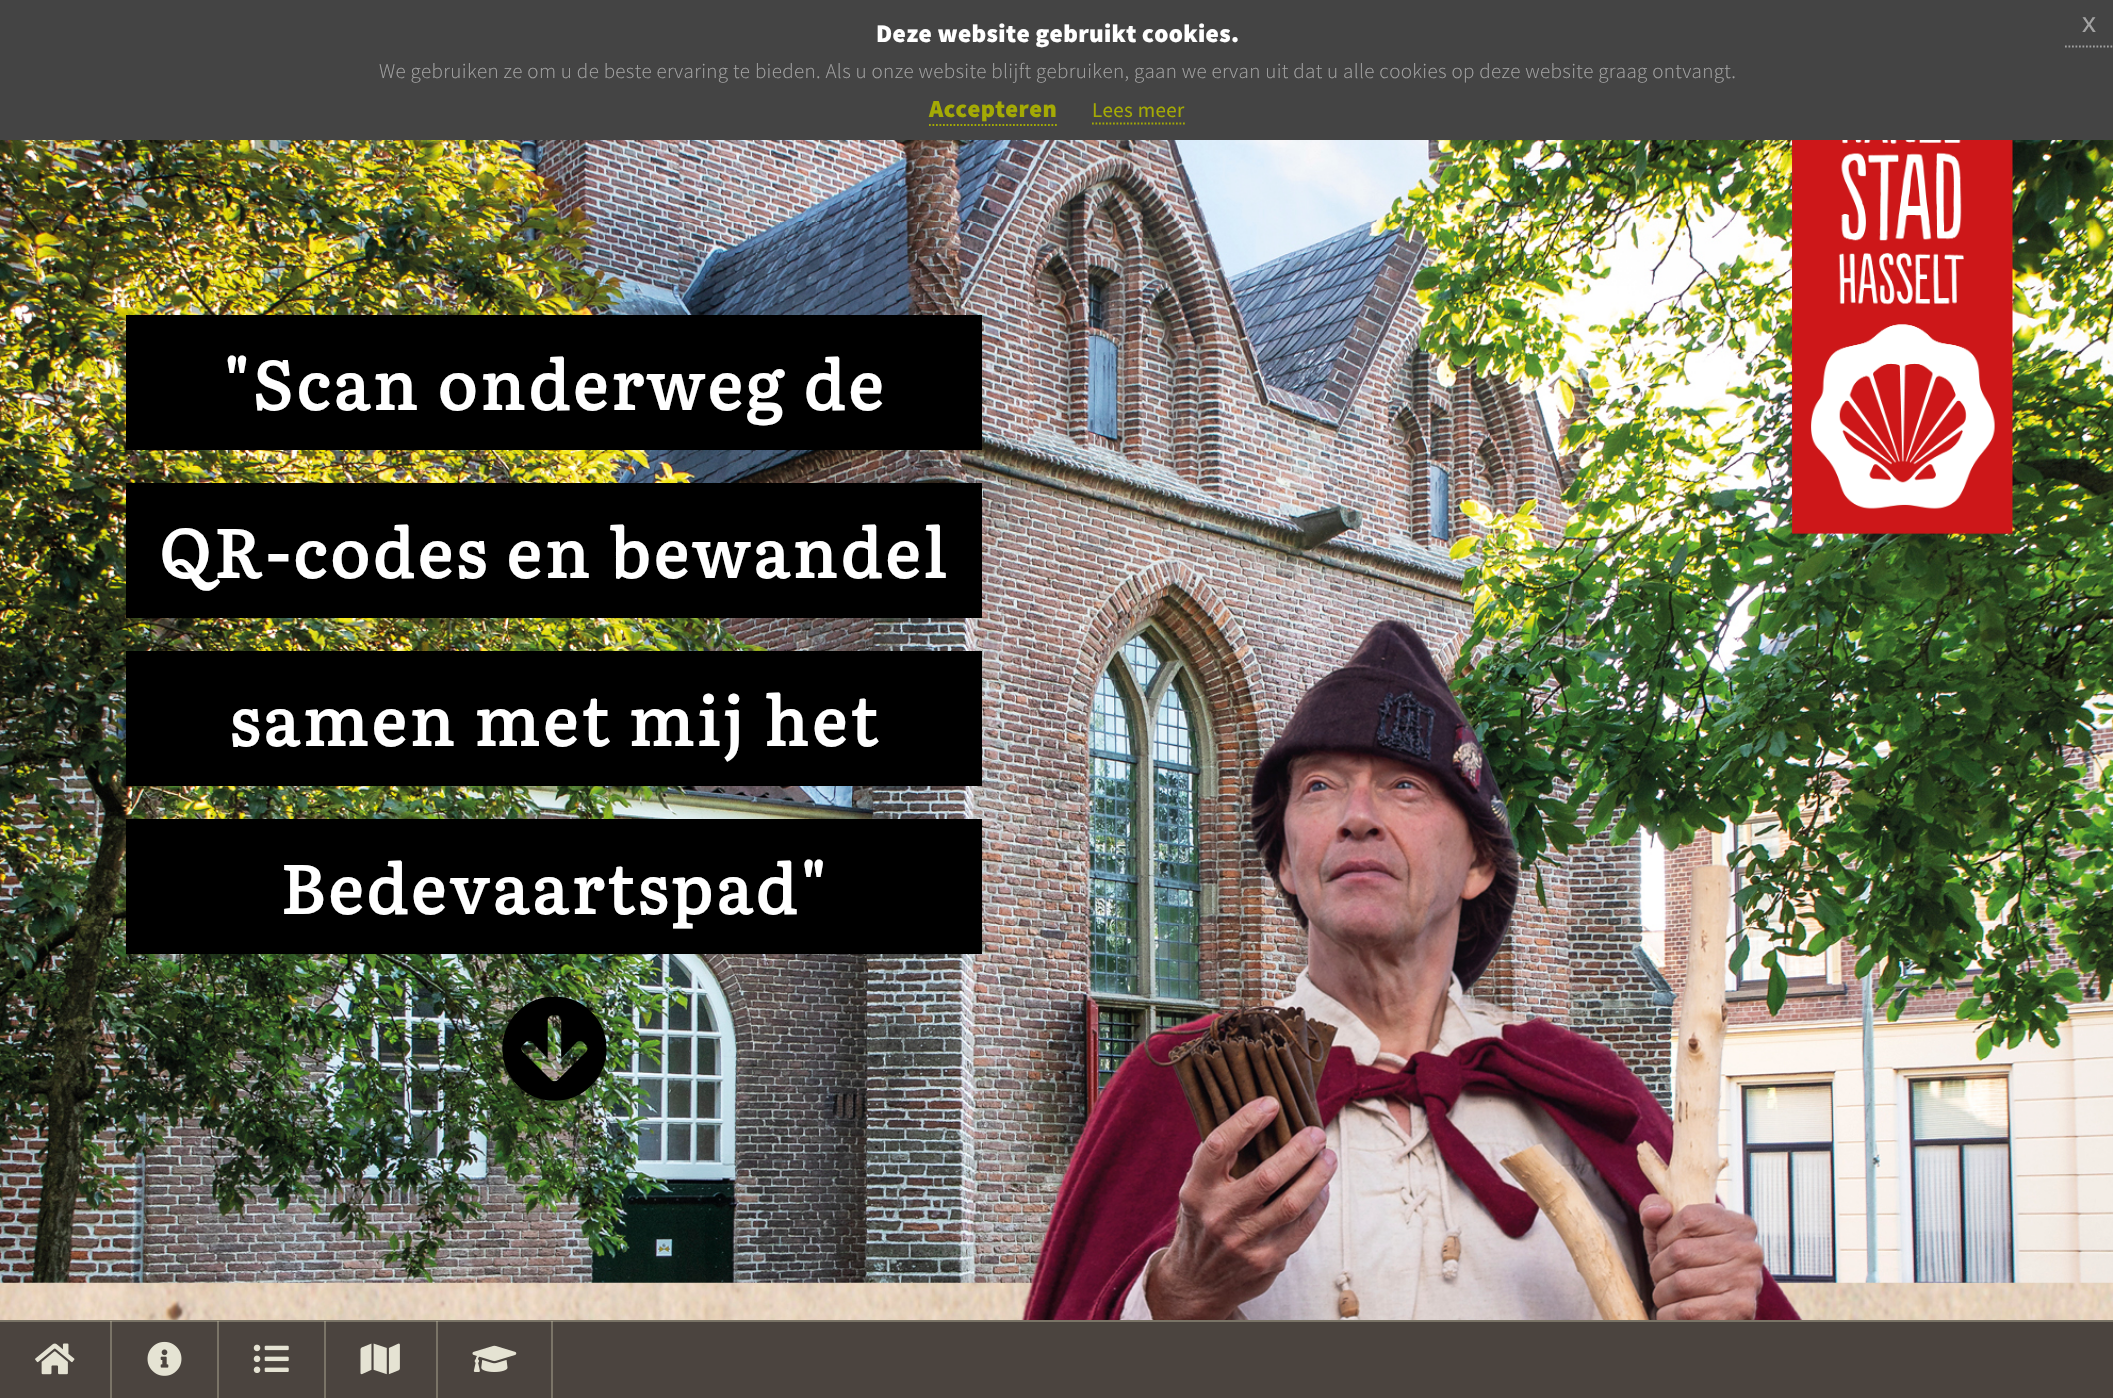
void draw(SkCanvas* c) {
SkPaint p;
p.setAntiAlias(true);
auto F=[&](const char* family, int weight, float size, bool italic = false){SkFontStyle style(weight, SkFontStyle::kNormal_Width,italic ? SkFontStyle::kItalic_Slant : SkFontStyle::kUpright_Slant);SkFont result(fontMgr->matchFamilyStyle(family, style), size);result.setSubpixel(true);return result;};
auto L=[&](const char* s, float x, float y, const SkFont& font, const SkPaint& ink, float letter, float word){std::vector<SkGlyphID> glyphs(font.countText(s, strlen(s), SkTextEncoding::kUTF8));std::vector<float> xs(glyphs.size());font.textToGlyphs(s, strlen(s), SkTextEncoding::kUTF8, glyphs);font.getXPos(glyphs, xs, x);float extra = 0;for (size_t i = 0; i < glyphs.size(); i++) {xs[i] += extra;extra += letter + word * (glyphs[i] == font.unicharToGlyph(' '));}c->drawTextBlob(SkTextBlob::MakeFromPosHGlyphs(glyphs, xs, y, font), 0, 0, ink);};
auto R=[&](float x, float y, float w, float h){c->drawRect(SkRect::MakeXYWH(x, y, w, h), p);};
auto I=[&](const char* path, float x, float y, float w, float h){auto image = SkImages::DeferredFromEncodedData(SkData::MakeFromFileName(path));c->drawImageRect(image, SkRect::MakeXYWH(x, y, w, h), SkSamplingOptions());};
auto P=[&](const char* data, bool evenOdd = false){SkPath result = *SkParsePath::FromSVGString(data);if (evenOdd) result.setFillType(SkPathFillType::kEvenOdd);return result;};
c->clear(0xffffffff);
p.setColor(0xff444444);
R(0,0,2113,140);
auto f1 = F("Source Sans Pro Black",900,25.25);
p.setColor(0xffffffff);
L("Deze website gebruikt cookies.",876,42,f1,p,.34,0);
p.setStroke(true);
p.setStrokeWidth(1.8);
p.setColor(0xffa2a2a2);
p.setPathEffect(SkDashPathEffect::Make({{1.75f,1.75f}}, 0));
c->drawPath(P("M2065 46.5h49"),p);
p.setPathEffect(nullptr);
auto f2 = F("Liberation Sans",400,28);
p.setStroke(false);
L("x",2082,32,f2,p,.34,0);
auto f3 = F("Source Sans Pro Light",300,21);
L("We gebruiken ze om u de beste ervaring te bieden. Als u onze website blijft gebruiken, gaan we ervan uit dat u alle cookies op deze website graag ontvangt.",379,78,f3,p,.34,0);
auto f4 = F("Source Sans Pro Black",900,24.5);
p.setColor(0xffa4aa04);
L("Accepteren",929,117,f4,p,.34,0);
p.setStroke(true);
p.setPathEffect(SkDashPathEffect::Make({{1.75f,1.75f}}, 0));
c->drawPath(P("M929 125h128"),p);
p.setPathEffect(nullptr);
auto f5 = F("Source Sans Pro",400,21);
p.setStroke(false);
L("Lees meer",1092,117,f5,p,.34,0);
p.setStroke(true);
p.setPathEffect(SkDashPathEffect::Make({{1.75f,1.75f}}, 0));
c->drawPath(P("M1092 123.5h93"),p);
p.setPathEffect(nullptr);
I("1.png",0,140,2113,1180);
p.setStroke(false);
p.setColor(0xff000000);
R(126,315,856,135);
auto f6 = F("Literata",700,67.25);
p.setColor(0xffffffff);
L("\"Scan onderweg de",223,410,f6,p,3.4,0);
p.setColor(0xff000000);
R(126,483,856,135);
p.setColor(0xffffffff);
L("QR-codes en bewandel",159,578,f6,p,3.4,0);
p.setColor(0xff000000);
R(126,651,856,135);
p.setColor(0xffffffff);
L("samen met mij het",229,746,f6,p,3.4,0);
p.setColor(0xff000000);
R(126,819,856,135);
p.setColor(0xffffffff);
L("Bedevaartspad\"",280,914,f6,p,3.4,0);
I("2.png",502,996,105,105);
I("3.png",1792,140,221,394);
p.setColor(0xff4b443f);
R(0,1322,2113,76);
p.setColor(0xff797366);
R(0,1320,2113,2);
p.setColor(0x4de3e0c2);
R(110,1321,2,77);
I("4.png",35,1343,40,32);
R(217,1321,2,77);
I("5.png",147,1341,35,35);
R(324,1321,2,77);
I("6.png",253,1344,36,29);
R(436,1321,2,77);
I("7.png",360,1343,40,32);
R(551,1321,2,77);
I("8.png",472,1345,45,27);
}
